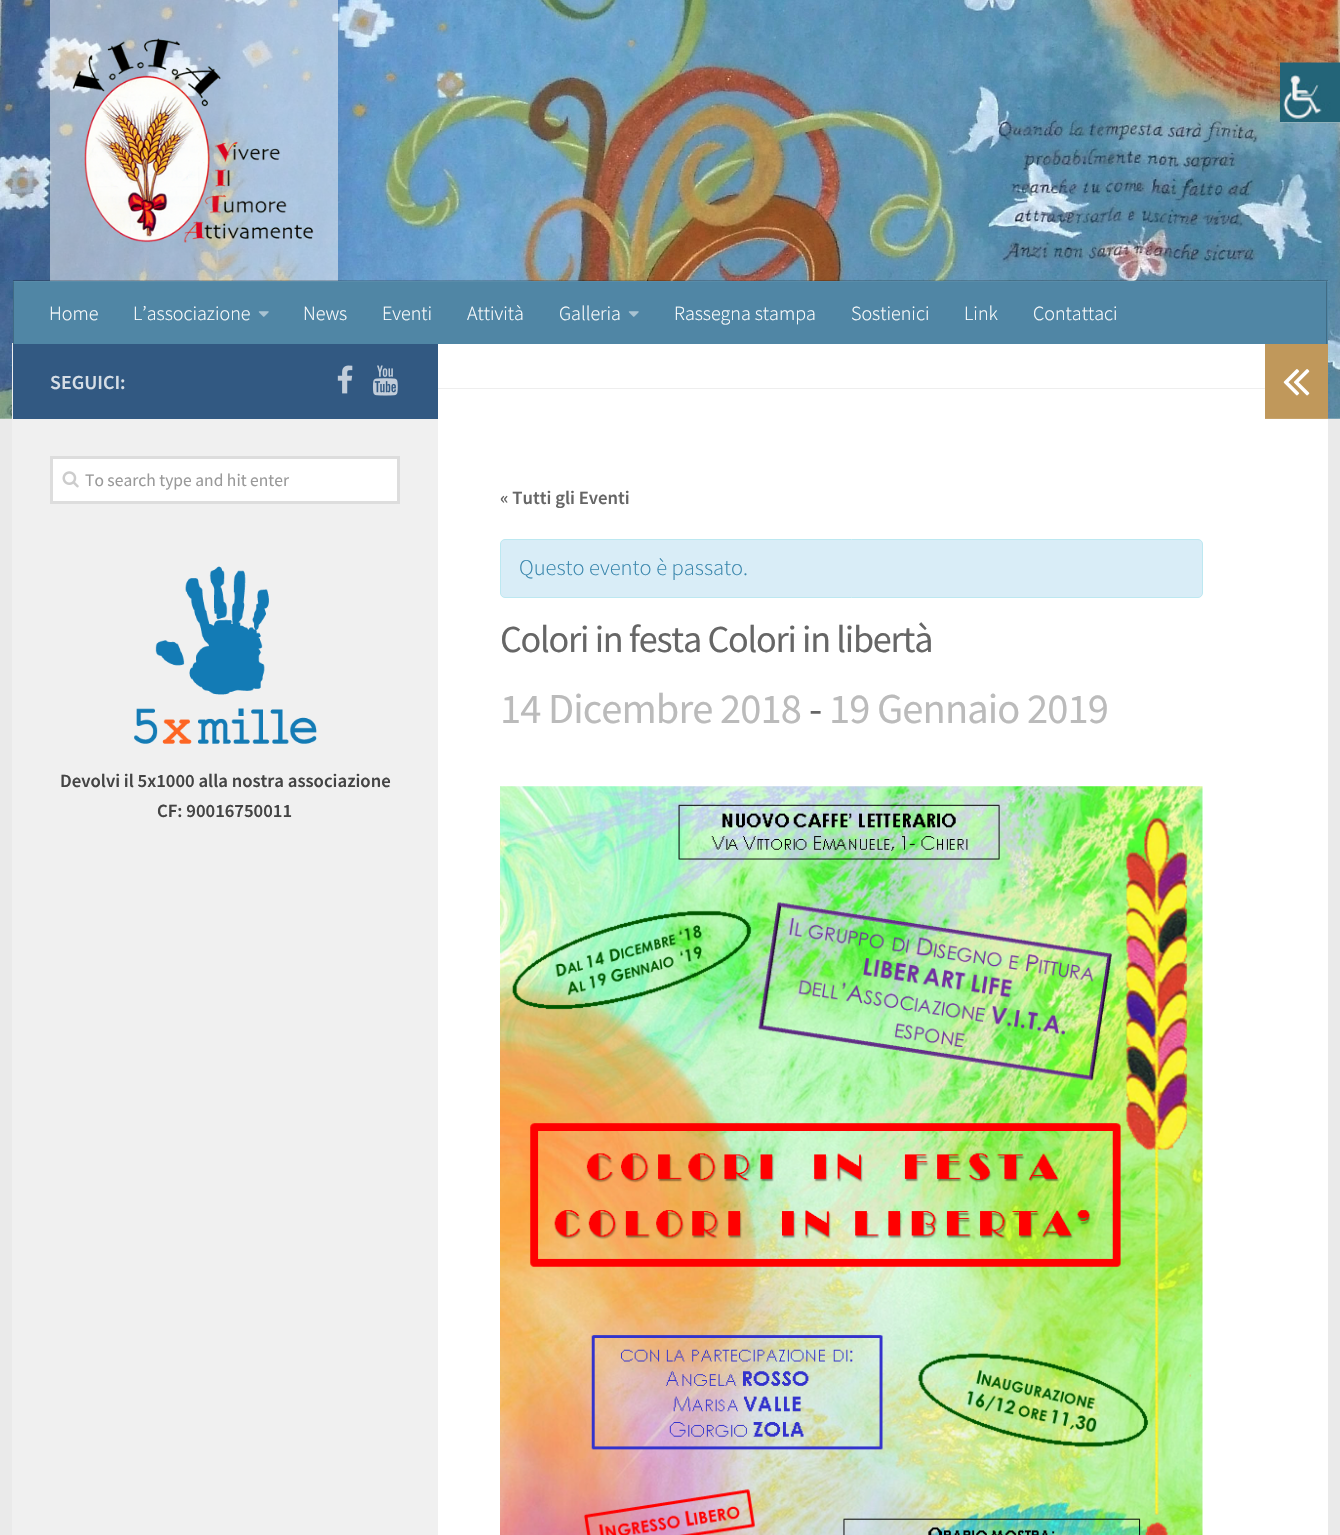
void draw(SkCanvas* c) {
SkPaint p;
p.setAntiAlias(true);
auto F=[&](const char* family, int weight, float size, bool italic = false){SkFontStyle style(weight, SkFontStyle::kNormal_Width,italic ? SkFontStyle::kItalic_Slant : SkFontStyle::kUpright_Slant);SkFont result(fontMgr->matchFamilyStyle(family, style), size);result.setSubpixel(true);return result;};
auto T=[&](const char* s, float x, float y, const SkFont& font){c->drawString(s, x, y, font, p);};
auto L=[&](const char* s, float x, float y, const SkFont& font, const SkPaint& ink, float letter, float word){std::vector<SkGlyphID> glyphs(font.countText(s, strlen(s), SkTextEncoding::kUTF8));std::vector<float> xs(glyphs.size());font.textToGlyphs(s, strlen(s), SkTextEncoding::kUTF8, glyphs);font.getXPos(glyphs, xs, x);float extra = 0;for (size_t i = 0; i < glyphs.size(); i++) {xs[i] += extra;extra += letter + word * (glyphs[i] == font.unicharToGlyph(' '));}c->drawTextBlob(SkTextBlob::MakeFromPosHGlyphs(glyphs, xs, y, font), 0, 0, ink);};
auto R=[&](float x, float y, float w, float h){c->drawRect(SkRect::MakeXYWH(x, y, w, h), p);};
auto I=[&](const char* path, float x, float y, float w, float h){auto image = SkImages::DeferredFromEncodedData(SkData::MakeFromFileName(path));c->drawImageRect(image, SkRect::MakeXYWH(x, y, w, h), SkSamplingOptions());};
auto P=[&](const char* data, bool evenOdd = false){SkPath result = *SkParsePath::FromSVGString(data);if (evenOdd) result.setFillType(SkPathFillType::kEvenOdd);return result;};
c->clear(0xffeaeaea);
I("2.png",0,0,1340,419);
p.setColor(0xffffffff);
R(1280,122,60,1);
I("1.png",1280,62,60,61);
p.setColor(0x80ffffff);
R(50,0,288,281);
I("3.png",72,38,242,205);
p.setColor(0x33000000);
c->drawPath(P("M13 280v1h1315v62v-63z"),p);
p.setColor(0xfff0f0f0);
R(12,343,426,1192);
p.setColor(0xff5086a5);
R(14,281,1314,63);
p.setColor(0xff406b84);
R(1326,281,1,63);
R(13,281,1,63);
p.setColor(0x0dffffff);
R(13,281,1315,1);
auto f1 = F("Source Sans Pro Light",300,20);
p.setColor(0xffffffff);
T("Home",49,320,f1);
T("L’associazione",133,320,f1);
I("4.png",258,311,11,6);
T("News",303,320,f1);
T("Eventi",382,320,f1);
T("Attività",467,320,f1);
T("Galleria",559,320,f1);
I("4.png",628,311,11,6);
T("Rassegna stampa",674,320,f1);
T("Sostienici",851,320,f1);
T("Link",964,320,f1);
T("Contattaci",1033,320,f1);
R(438,344,890,1191);
p.setColor(0xff325982);
R(13,344,425,75);
auto f2 = F("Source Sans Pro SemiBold",600,20);
p.setColor(0xffd6dee6);
T("SEGUICI:",50,389,f2);
I("5.png",337,365,16,29);
I("6.png",372,365,26,31);
p.setColor(0xffffffff);
c->drawRect(SkRect::MakeXYWH(51.5,457.5,347,45),p);
p.setStroke(true);
p.setStrokeWidth(3);
p.setColor(0xffdddddd);
c->drawRect(SkRect::MakeXYWH(51.5,457.5,347,45),p);
I("7.png",62,471,17,17);
auto f3 = F("Source Sans Pro",400,17.5);
p.setStroke(false);
p.setColor(0xff999999);
T("To search type and hit enter",85,486,f3);
I("8.png",134,566,183,178);
auto f4 = F("Source Sans Pro SemiBold",600,18.75);
p.setColor(0xff444444);
T("Devolvi il 5x1000 alla nostra associazione",60,787,f4);
T("CF: 90016750011",157,817,f4);
p.setColor(0xffeeeeee);
R(438,388,827,1);
p.setColor(0xff666666);
T("« Tutti gli Eventi",500,504,f4);
p.setColor(0xffd9edf7);
c->drawRoundRect(SkRect::MakeXYWH(500.5,539.5,702,58),4.5,4.5,p);
p.setStroke(true);
p.setStrokeWidth(1);
p.setColor(0xffbce8f1);
c->drawRoundRect(SkRect::MakeXYWH(500.5,539.5,702,58),4.5,4.5,p);
auto f5 = F("Source Sans Pro Light",300,22.5);
p.setStroke(false);
p.setColor(0xff3a87ad);
T("Questo evento è passato.",519,575,f5);
auto f6 = F("Source Sans Pro",400,38.25);
p.setColor(0xff666666);
L("Colori in festa Colori in libertà",500,652,f6,p,-1.25,0);
auto f7 = F("Source Sans Pro",400,42.5);
p.setColor(0xffbbbbbb);
L("14 Dicembre 2018",500,723,f7,p,-.9,0);
p.setColor(0xff666666);
L("-",809,723,f7,p,-.9,0);
p.setColor(0xffbbbbbb);
L("19 Gennaio 2019",829,723,f7,p,-.9,0);
I("9.png",500,786,703,749);
p.setColor(0xffc0985b);
R(1265,344,63,74);
p.setColor(0xffc6a26b);
R(1265,418,63,1);
I("10.png",1283,369,27,27);
}
